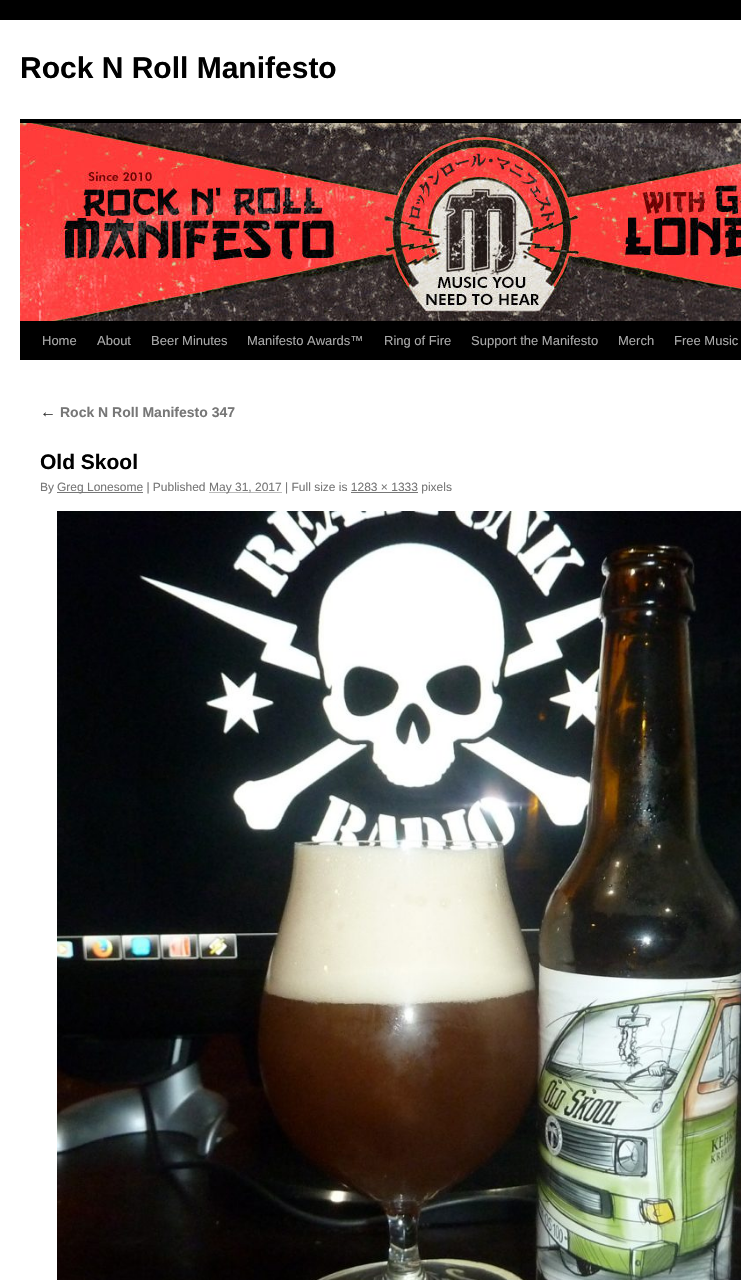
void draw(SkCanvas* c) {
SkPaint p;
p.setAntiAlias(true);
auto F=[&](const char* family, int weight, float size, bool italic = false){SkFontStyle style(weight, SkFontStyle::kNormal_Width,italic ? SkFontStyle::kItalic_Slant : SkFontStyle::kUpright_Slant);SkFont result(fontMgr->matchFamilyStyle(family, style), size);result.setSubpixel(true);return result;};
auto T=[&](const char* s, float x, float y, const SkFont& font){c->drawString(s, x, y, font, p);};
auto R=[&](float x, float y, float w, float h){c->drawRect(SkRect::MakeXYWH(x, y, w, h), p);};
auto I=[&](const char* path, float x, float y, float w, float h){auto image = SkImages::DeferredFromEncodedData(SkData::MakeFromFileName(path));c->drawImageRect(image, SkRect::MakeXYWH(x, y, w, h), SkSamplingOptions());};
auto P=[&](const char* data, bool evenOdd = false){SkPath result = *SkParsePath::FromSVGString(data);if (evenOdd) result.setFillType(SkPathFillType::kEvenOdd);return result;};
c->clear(0xff000000);
p.setColor(0xffffffff);
R(0,20,741,1260);
auto f1 = F("Liberation Sans",700,30);
p.setColor(0xff000000);
T("Rock N Roll Manifesto",20,78,f1);
R(20,119,721,4);
R(20,321,721,39);
I("1.png",20,123,721,198);
auto f2 = F("Liberation Sans",400,13);
p.setColor(0xffaaaaaa);
T("Home",42,345,f2);
T("About",97,345,f2);
T("Beer Minutes",151,345,f2);
T("Manifesto Awards™",247,345,f2);
T("Ring of Fire",384,345,f2);
T("Support the Manifesto",471,345,f2);
T("Merch",618,345,f2);
T("Free Music",674,345,f2);
auto f3 = F("Liberation Serif",400,16,true);
p.setColor(0xff333333);
T("←",40,417,f3);
auto f4 = F("Liberation Sans",700,14);
p.setColor(0xff777777);
T("Rock N Roll Manifesto 347",60,417,f4);
auto f5 = F("Liberation Sans",700,21);
p.setColor(0xff000000);
T("Old Skool",40,469,f5);
auto f6 = F("Liberation Sans",400,12);
p.setColor(0xff777777);
T("By",40,491,f6);
R(57,492,86,1);
T("Greg Lonesome | Published",57,491,f6);
p.setStroke(true);
p.setStrokeWidth(1);
p.setPathEffect(SkDashPathEffect::Make({{1,1}}, 0));
c->drawPath(P("M209.5 492.5h72.5"),p);
p.setPathEffect(nullptr);
p.setStroke(false);
T("May 31, 2017 | Full size is 1283 × 1333 pixels",209,491,f6);
R(351,492,67,1);
I("2.png",57,511,684,769);
}
